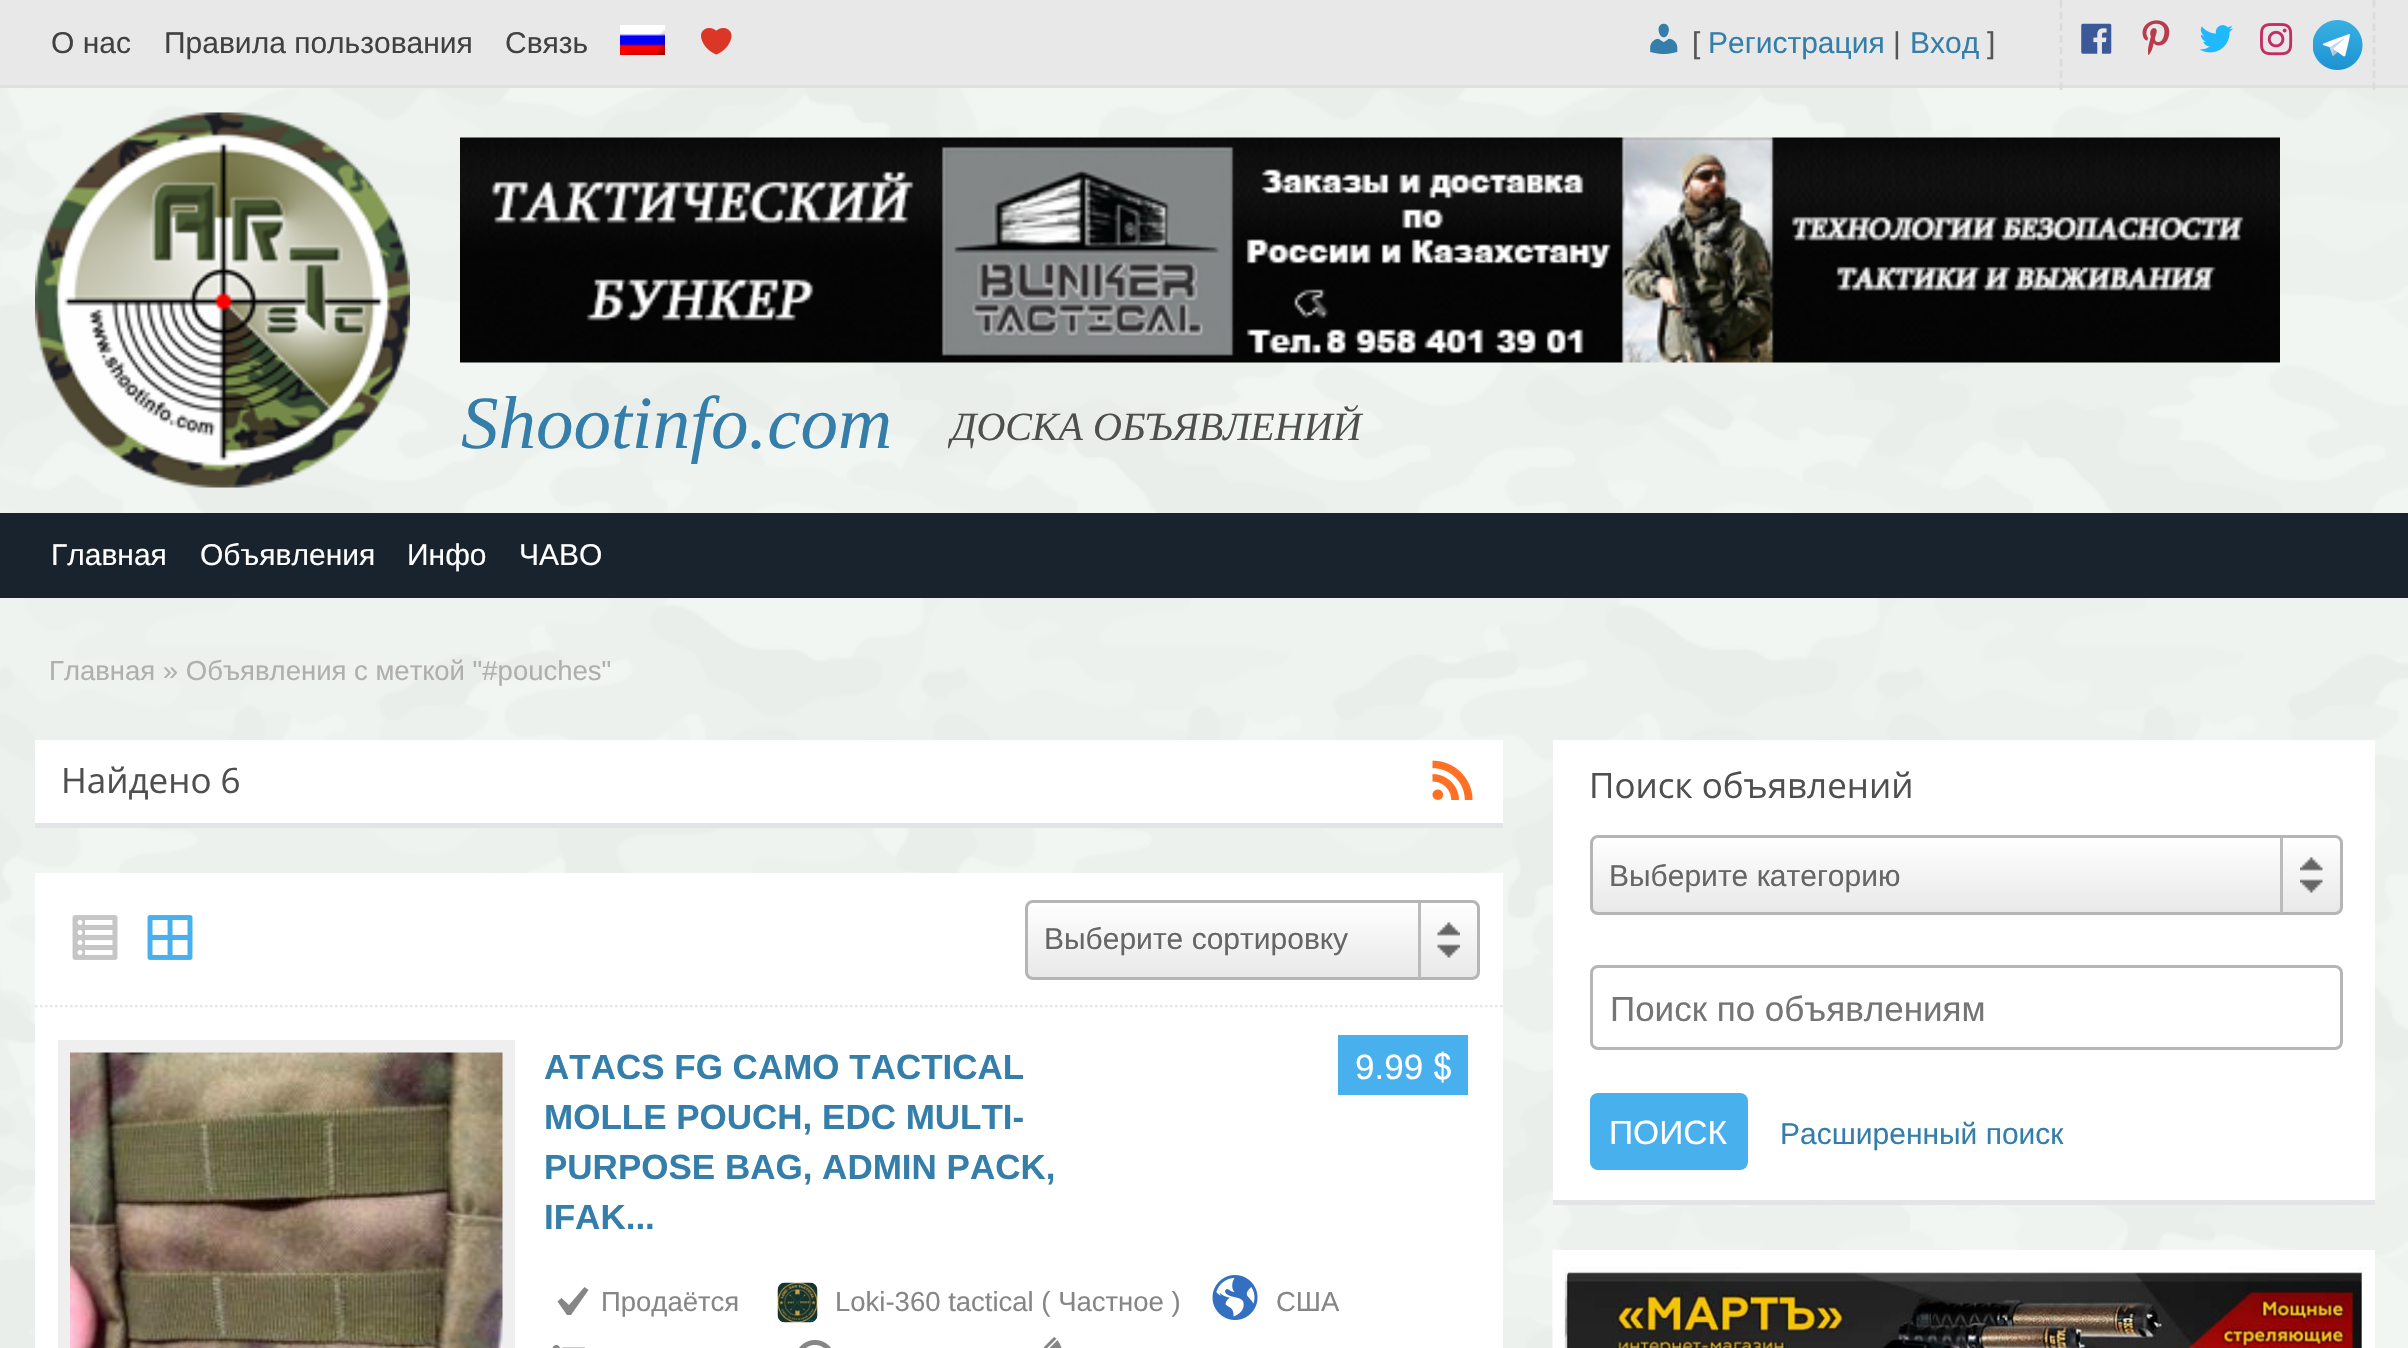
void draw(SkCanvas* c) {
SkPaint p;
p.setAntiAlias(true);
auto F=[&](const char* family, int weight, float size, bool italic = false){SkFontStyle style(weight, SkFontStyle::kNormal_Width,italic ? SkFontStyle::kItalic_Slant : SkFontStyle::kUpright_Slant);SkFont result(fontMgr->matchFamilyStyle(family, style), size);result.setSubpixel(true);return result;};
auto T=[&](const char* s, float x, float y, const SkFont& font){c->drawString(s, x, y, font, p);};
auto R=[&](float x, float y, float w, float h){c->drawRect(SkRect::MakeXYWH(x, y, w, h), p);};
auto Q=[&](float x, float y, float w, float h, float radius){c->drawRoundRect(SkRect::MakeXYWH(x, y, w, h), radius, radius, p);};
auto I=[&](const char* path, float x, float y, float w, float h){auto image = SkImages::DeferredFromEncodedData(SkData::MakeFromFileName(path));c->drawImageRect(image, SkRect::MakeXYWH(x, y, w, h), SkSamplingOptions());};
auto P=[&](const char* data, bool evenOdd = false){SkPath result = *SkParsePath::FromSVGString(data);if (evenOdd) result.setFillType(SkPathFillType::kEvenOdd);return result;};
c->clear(0xfff3f8f4);
I("1.png",0,88,2408,1260);
p.setColor(0xffe8e8e8);
R(0,0,2408,85);
p.setColor(0xffe0e0e0);
R(0,85,2408,3);
auto f1 = F("Liberation Sans",400,30);
p.setColor(0xff414141);
T("О нас",51,53,f1);
T("Правила пользования",164,53,f1);
T("Связь",505,53,f1);
I("2.png",620,25,45,30);
I("3.png",701,28,31,27);
I("4.png",1650,23,28,32);
p.setColor(0xff565656);
T("[",1692,53,f1);
p.setColor(0xff347ea9);
T("Регистрация",1708,53,f1);
p.setColor(0xff565656);
T("|",1893,53,f1);
p.setColor(0xff347ea9);
T("Вход",1910,53,f1);
p.setColor(0xff565656);
T("]",1987,53,f1);
p.setStroke(true);
p.setStrokeWidth(2.5);
p.setColor(0xffdbdbdb);
p.setPathEffect(SkDashPathEffect::Make({{7.5f,4.28f}}, 0));
c->drawPath(P("M2374 0v90"),p);
p.setPathEffect(nullptr);
p.setPathEffect(SkDashPathEffect::Make({{7.5f,4.28f}}, 0));
c->drawPath(P("M2061 0v90"),p);
p.setPathEffect(nullptr);
I("5.png",2081,23,31,31);
I("6.png",2142,20,28,36);
I("7.png",2199,25,34,28);
I("8.png",2260,23,33,33);
I("9.png",2313,20,50,50);
I("10.png",35,112,375,376);
I("11.png",460,137,1820,226);
auto f2 = F("Liberation Serif",400,75,true);
p.setStroke(false);
p.setColor(0xff347ea9);
T("Shootinfo.com",461,448,f2);
auto f3 = F("Liberation Serif",400,40,true);
p.setColor(0xff4f4f4f);
T("ДОСКА ОБЪЯВЛЕНИЙ",951,440,f3);
p.setColor(0xff19232d);
R(0,513,2408,85);
p.setColor(0xffffffff);
T("Главная",51,565,f1);
T("Объявления",200,565,f1);
T("Инфо",407,565,f1);
T("ЧАВО",519,565,f1);
auto f4 = F("Liberation Sans",400,27.5);
p.setColor(0xffafafaf);
T("Главная » Объявления с меткой \"#pouches\"",49,680,f4);
p.setColor(0xffe3e4e7);
c->drawPath(P("M35 822v6h1468v-83h-1v77z"),p);
p.setColor(0xffffffff);
R(35,740,1468,83);
auto f5 = F("Open Sans",400,35);
p.setColor(0xff4f4f4f);
T("Найдено 6",61,793,f5);
I("12.png",1432,760,41,40);
p.setColor(0xffffffff);
R(35,1005,1468,343);
p.setStroke(true);
p.setColor(0xffe6e6e6);
p.setPathEffect(SkDashPathEffect::Make({{2.5f,2.5f}}, 0));
c->drawPath(P("M35 1006h1467.5"),p);
p.setPathEffect(nullptr);
p.setStroke(false);
p.setColor(0xffffffff);
R(35,873,1468,132);
I("13.png",72,915,46,45);
I("14.png",147,915,46,45);
c->save();
c->clipPath(P("M1033 900h439c4.5 0 8 3.5 8 8v64c0 4.5-3.5 8-8 8h-439c-4.5 0-8-3.5-8-8v-64c0-4.5 3.5-8 8-8z"),true);
{
const SkColor colors[] = {0xffffffff,0xffe8e8e8};
const float stops[] = {0,1};
const SkPoint ends[] = {{1253,903}, {1253,978}};
p.setShader(SkGradientShader::MakeLinear(ends, colors, stops, 2, SkTileMode::kClamp));
p.setAlpha(255);
}
R(1025,903,455,75);
c->restore();
p.setStroke(true);
p.setStrokeWidth(3);
p.setShader(nullptr);
p.setColor(0xffb5b5b5);
c->drawRoundRect(SkRect::MakeXYWH(1026.5,901.5,452,77),6.5,6.5,p);
p.setStroke(false);
p.setColor(0xff666666);
T("Выберите сортировку",1044,949,f1);
I("15.png",1437,922,23,36);
p.setColor(0xffbbbbbb);
R(1418,903,3,75);
p.setColor(0xffefefef);
R(58,1040,457,308);
I("16.png",70,1052,433,296);
auto f6 = F("Liberation Sans",700,35);
p.setColor(0xff347ea9);
T("ATACS FG CAMO TACTICAL",544,1079,f6);
T("MOLLE POUCH, EDC MULTI-",544,1129,f6);
T("PURPOSE BAG, ADMIN PACK,",544,1179,f6);
T("IFAK...",544,1229,f6);
p.setColor(0xff47b0ed);
R(1338,1035,130,60);
auto f7 = F("Liberation Sans",400,35);
p.setColor(0xffffffff);
T("9.99",1355,1079,f7);
auto f8 = F("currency",400,35);
T("$",1433,1079,f8);
p.setColor(0xff868686);
c->drawPath(P("M584.5 1287l4 3l-17.5 25h-4l-9.5-13.5l4-3.5l7.5 7z"),p);
T("Продаётся",601,1311,f4);
I("17.png",777,1282,41,41);
T("Loki-360 tactical ( Частное )",835,1311,f4);
I("18.png",1212,1275,46,45);
T("США",1276,1311,f4);
I("19.png",552,1345,33,3);
I("20.png",799,1340,32,8);
I("21.png",1043,1337,19,11);
p.setColor(0xffe3e4e7);
R(1553,1200,822,5);
p.setColor(0xffffffff);
R(1553,740,822,460);
p.setColor(0xff4f4f4f);
T("Поиск объявлений",1589,798,f5);
c->save();
c->clipPath(P("M1598 835h737c4.5 0 8 3.5 8 8v64c0 4.5-3.5 8-8 8h-737c-4.5 0-8-3.5-8-8v-64c0-4.5 3.5-8 8-8z"),true);
{
const SkColor colors[] = {0xffffffff,0xffe8e8e8};
const float stops[] = {0,1};
const SkPoint ends[] = {{1966,838}, {1966,913}};
p.setShader(SkGradientShader::MakeLinear(ends, colors, stops, 2, SkTileMode::kClamp));
p.setAlpha(255);
}
R(1590,838,753,75);
c->restore();
p.setStroke(true);
p.setShader(nullptr);
p.setColor(0xffb5b5b5);
c->drawRoundRect(SkRect::MakeXYWH(1591.5,836.5,750,77),6.5,6.5,p);
p.setStroke(false);
p.setColor(0xff666666);
T("Выберите категорию",1609,886,f1);
I("22.png",2300,857,23,36);
p.setColor(0xffbbbbbb);
R(2280,838,3,75);
p.setStroke(true);
p.setColor(0xffb5b5b5);
c->drawRoundRect(SkRect::MakeXYWH(1591.5,966.5,750,82),6.5,6.5,p);
p.setStroke(false);
p.setColor(0xff757575);
T("Поиск по объявлениям",1610,1021,f7);
p.setColor(0xff47b0ed);
Q(1590,1093,158,77,8);
auto f9 = F("Liberation Sans",400,33.5);
p.setColor(0xffffffff);
T("ПОИСК",1609,1144,f9);
p.setColor(0xff347ea9);
T("Расширенный поиск",1780,1144,f1);
p.setColor(0xffffffff);
R(2367,1250,8,98);
I("23.png",1552,1250,815,98);
}
